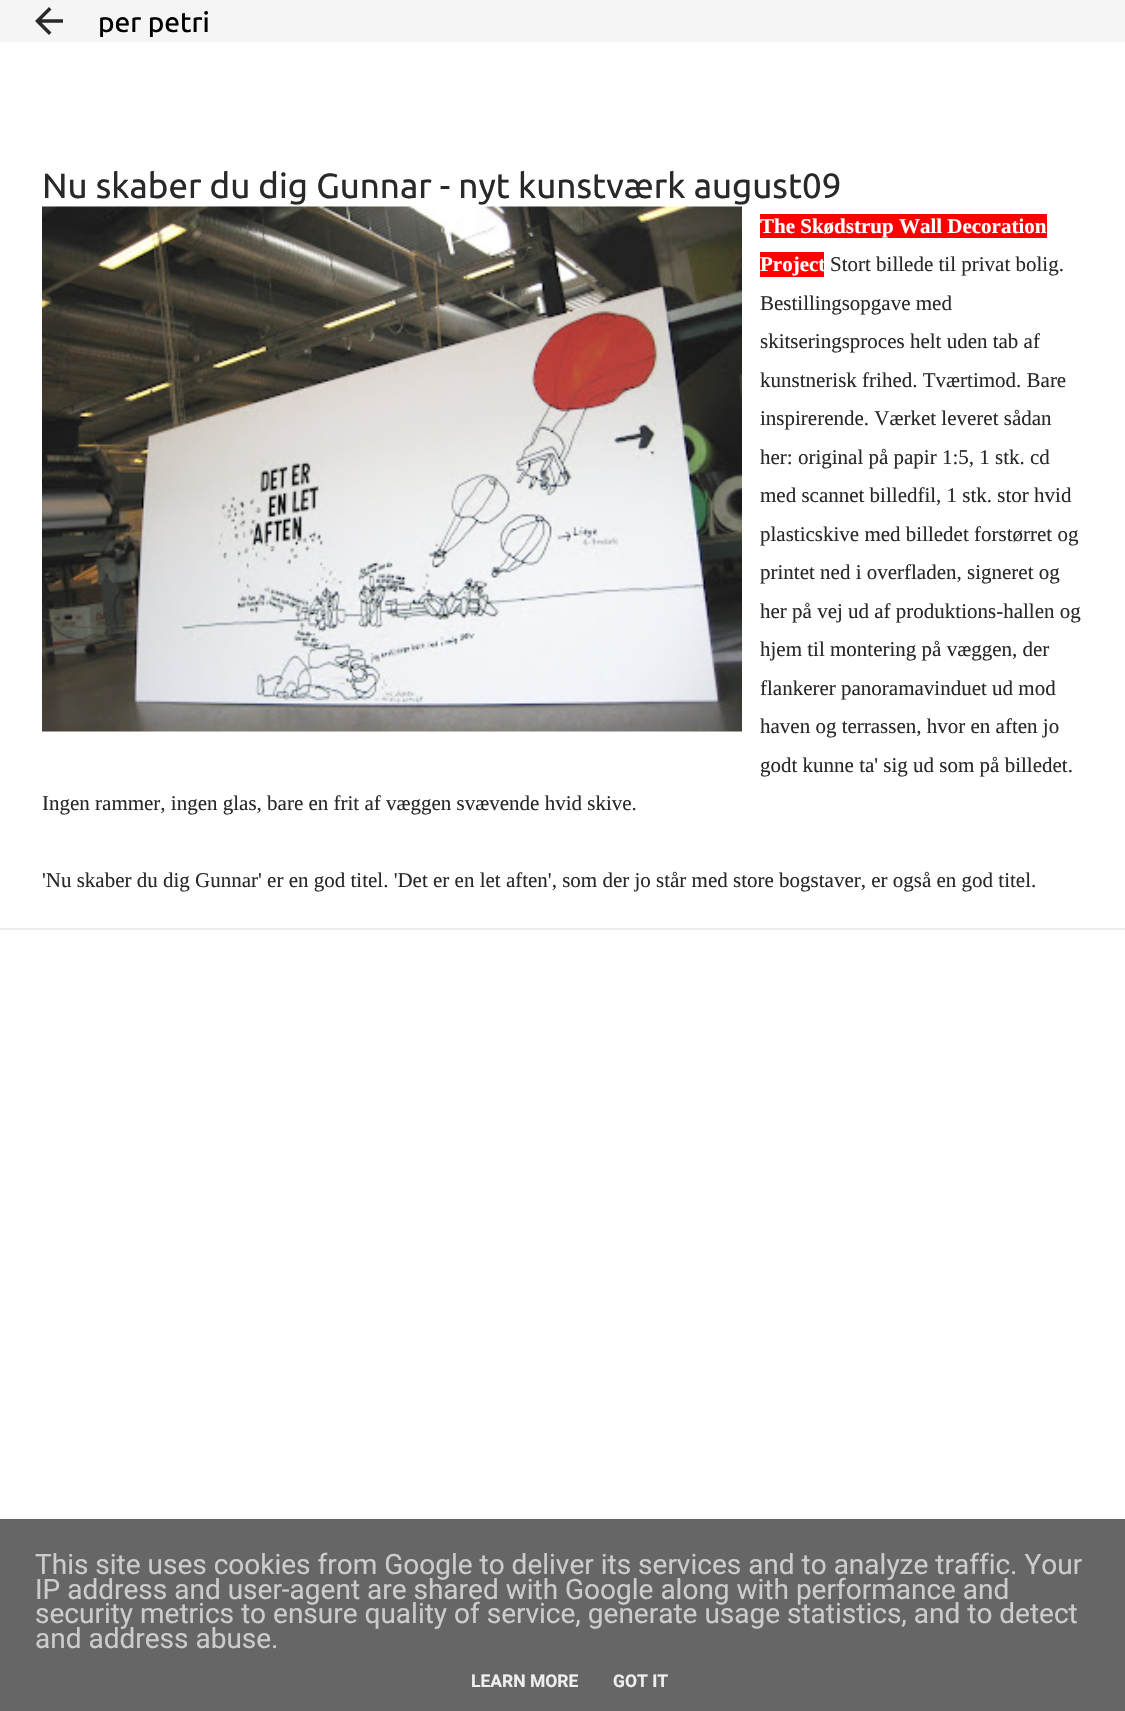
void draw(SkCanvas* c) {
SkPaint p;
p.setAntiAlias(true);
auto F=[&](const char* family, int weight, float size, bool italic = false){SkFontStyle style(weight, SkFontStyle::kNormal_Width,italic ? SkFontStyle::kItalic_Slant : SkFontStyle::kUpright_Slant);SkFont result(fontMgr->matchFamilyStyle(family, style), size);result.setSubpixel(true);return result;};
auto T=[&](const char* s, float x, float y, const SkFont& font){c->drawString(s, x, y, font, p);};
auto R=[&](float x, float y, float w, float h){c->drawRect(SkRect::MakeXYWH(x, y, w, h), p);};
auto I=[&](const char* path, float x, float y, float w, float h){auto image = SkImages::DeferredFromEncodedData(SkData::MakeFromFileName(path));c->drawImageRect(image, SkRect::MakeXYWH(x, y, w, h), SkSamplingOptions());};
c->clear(0xffffffff);
p.setColor(0xfff5f5f5);
R(0,0,1125,42);
I("1.png",35,7,28,28);
c->save();
c->clipRect(SkRect::MakeXYWH(98,5,999,32));
auto f1 = F("Ubuntu",500,28);
p.setColor(0xff000000);
T("per petri",98,32,f1);
c->restore();
auto f2 = F("Ubuntu",400,35);
p.setColor(0xff282a27);
T("Nu skaber du dig Gunnar - nyt kunstværk august09",42,198,f2);
I("2.png",42,206,700,526);
p.setColor(0xffff0000);
R(760,214,287,24);
auto f3 = F("Liberation Serif",700,21);
p.setColor(0xffffffff);
T("The Skødstrup Wall Decoration",760,233,f3);
p.setColor(0xffff0000);
R(760,252,64,25);
p.setColor(0xffffffff);
T("Project",760,271,f3);
auto f4 = F("Liberation Serif",400,21);
p.setColor(0xff282a27);
T("Stort billede til privat bolig.",830,271,f4);
T("Bestillingsopgave med",760,310,f4);
T("skitseringsproces helt uden tab af",760,348,f4);
T("kunstnerisk frihed. Tværtimod. Bare",760,387,f4);
T("inspirerende. Værket leveret sådan",760,425,f4);
T("her: original på papir 1:5, 1 stk. cd",760,464,f4);
T("med scannet billedfil, 1 stk. stor hvid",760,502,f4);
T("plasticskive med billedet forstørret og",760,541,f4);
T("printet ned i overfladen, signeret og",760,579,f4);
T("her på vej ud af produktions-hallen og",760,618,f4);
T("hjem til montering på væggen, der",760,656,f4);
T("flankerer panoramavinduet ud mod",760,695,f4);
T("haven og terrassen, hvor en aften jo",760,733,f4);
T("godt kunne ta' sig ud som på billedet.",760,772,f4);
T("Ingen rammer, ingen glas, bare en frit af væggen svævende hvid skive.",42,810,f4);
T("'Nu skaber du dig Gunnar' er en god titel. 'Det er en let aften', som der jo står med store bogstaver, er også en god titel.",42,887,f4);
p.setColor(0xffededed);
R(0,928,1125,2);
p.setColor(0xff666666);
R(0,1519,1125,192);
auto f5 = F("Roboto",400,28);
p.setColor(0xffcccccc);
T("This site uses cookies from Google to deliver its services and to analyze traffic. Your",35,1574,f5);
T("IP address and user-agent are shared with Google along with performance and",35,1599,f5);
T("security metrics to ensure quality of service, generate usage statistics, and to detect",35,1623,f5);
T("and address abuse.",35,1648,f5);
auto f6 = F("Roboto",700,17.5);
p.setColor(0xffeeeeee);
T("LEARN MORE",471,1687,f6);
T("GOT IT",613,1687,f6);
}
